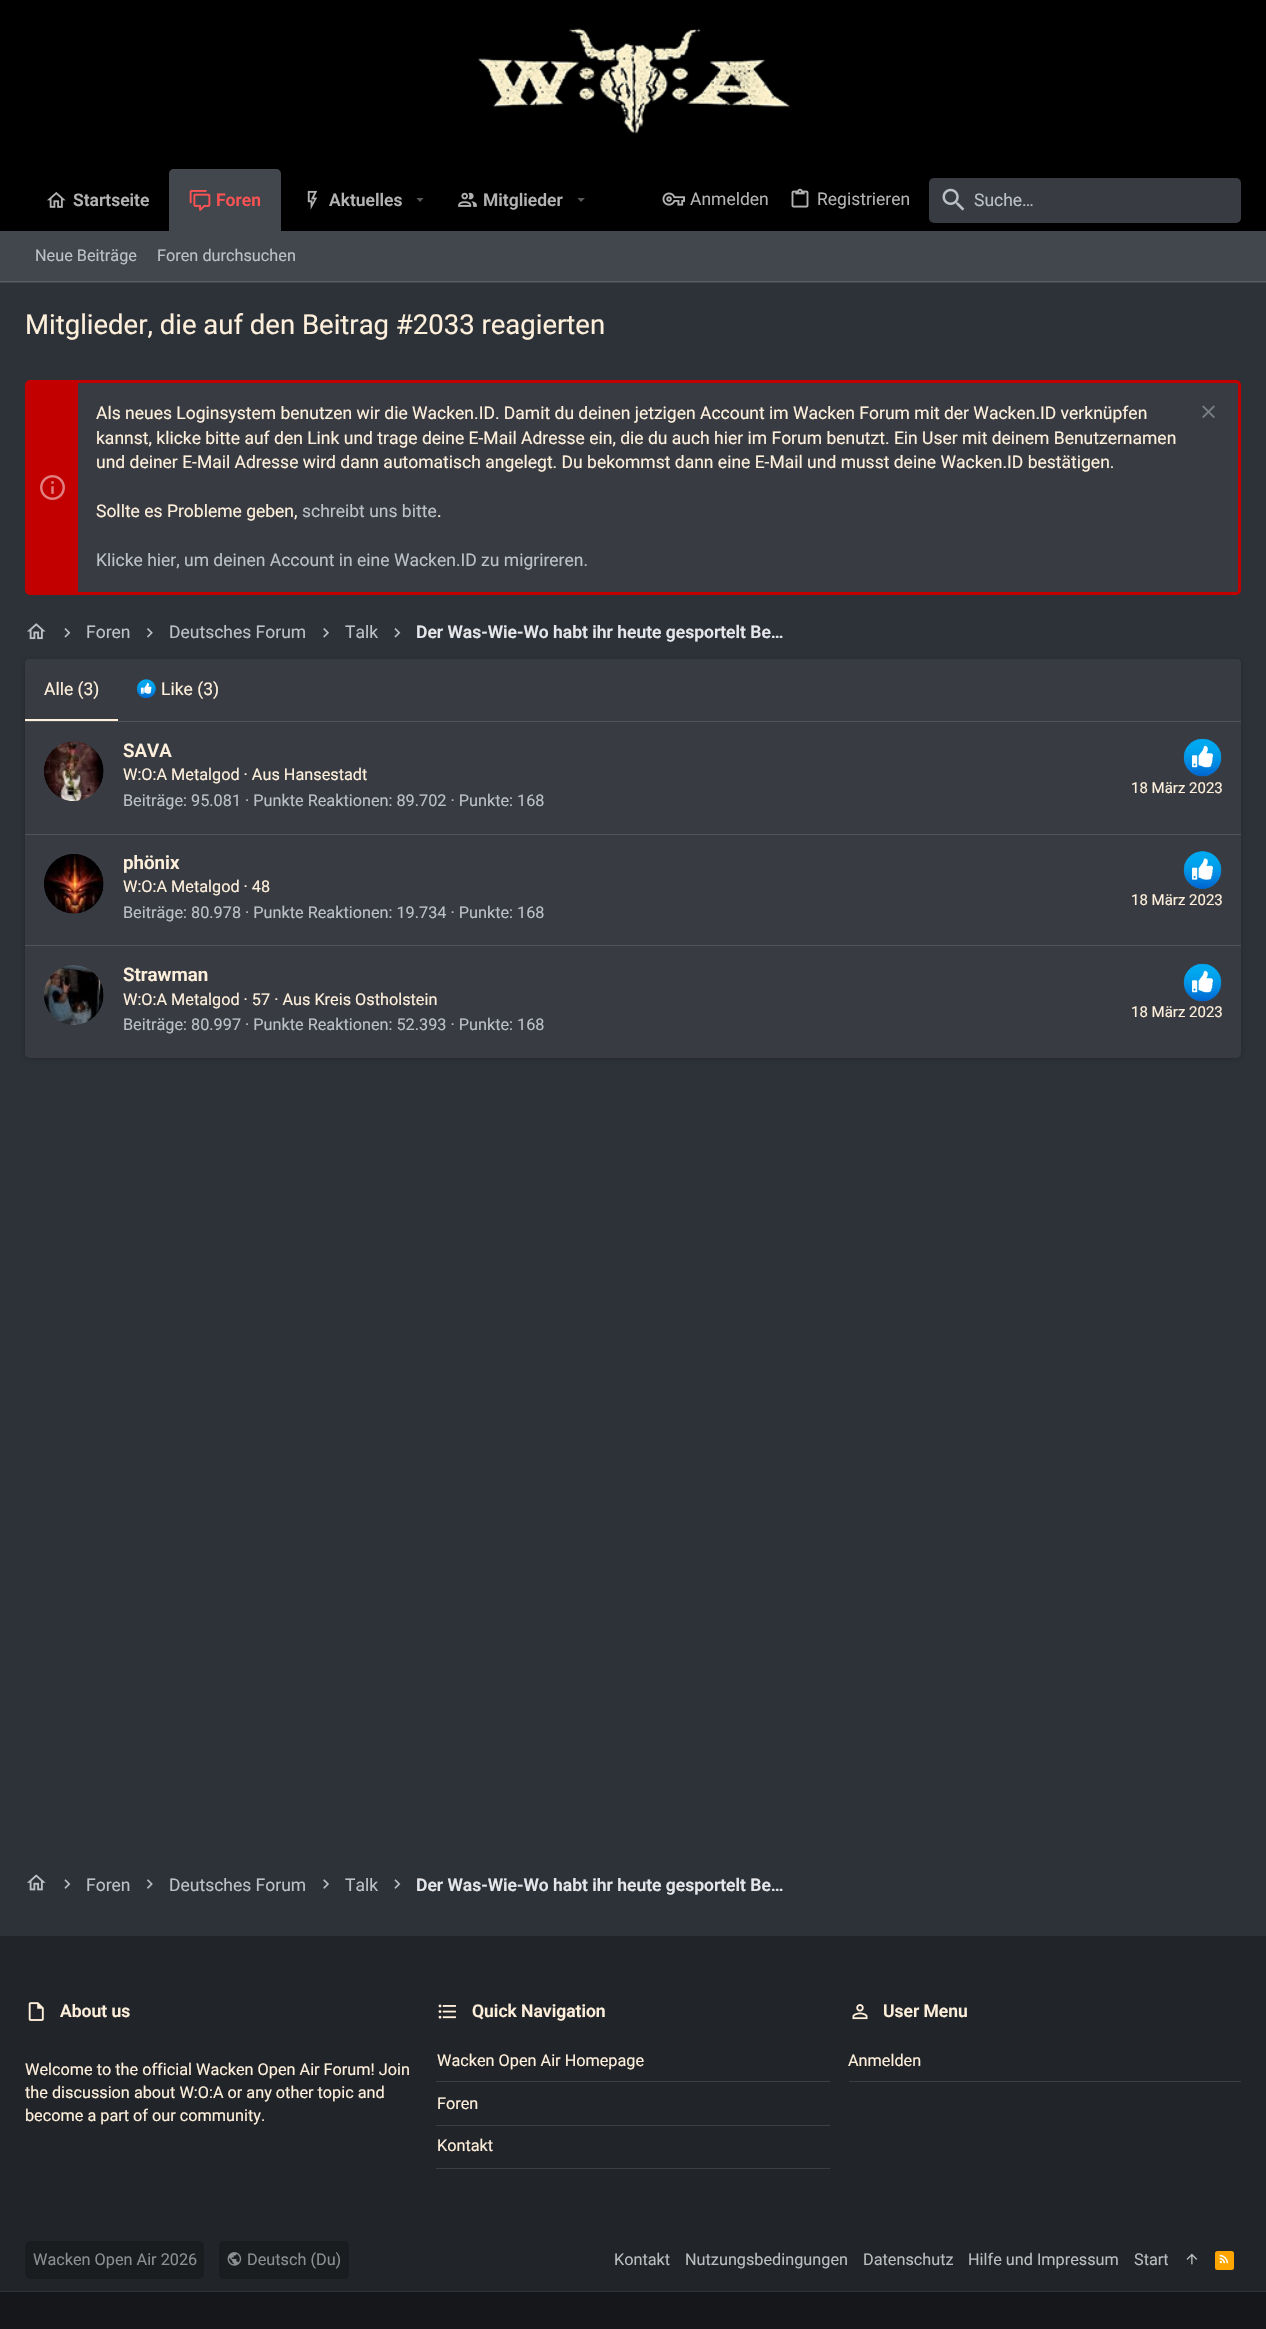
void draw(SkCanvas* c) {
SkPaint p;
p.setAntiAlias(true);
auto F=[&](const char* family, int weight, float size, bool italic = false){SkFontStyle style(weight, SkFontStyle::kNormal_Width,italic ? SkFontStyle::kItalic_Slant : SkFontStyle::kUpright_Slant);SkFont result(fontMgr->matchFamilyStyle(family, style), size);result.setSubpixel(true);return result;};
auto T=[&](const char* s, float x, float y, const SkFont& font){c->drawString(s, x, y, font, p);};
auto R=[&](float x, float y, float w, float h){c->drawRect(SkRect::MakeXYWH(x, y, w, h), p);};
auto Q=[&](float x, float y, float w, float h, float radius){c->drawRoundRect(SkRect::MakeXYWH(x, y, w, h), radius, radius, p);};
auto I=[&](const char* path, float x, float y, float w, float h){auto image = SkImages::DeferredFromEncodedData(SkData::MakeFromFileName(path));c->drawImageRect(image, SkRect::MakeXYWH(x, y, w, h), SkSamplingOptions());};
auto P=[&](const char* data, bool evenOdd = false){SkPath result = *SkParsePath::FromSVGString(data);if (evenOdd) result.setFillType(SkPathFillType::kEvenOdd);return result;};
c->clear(0xff2d3238);
p.setColor(0xff000000);
R(0,0,1266,231);
I("1.png",478,28,313,106);
I("2.png",47,192,19,16);
auto f1 = F("Roboto",600,17.5);
p.setColor(0xffb3b3b3);
T("Startseite",73,206,f1);
p.setColor(0xff42464d);
c->drawPath(P("M174 169h102c3 0 5 2 5 5v57h-112v-57c0-3 2-5 5-5z"),p);
I("3.png",189,190,22,21);
p.setColor(0xffff5353);
T("Foren",216,206,f1);
I("4.png",307,190,11,20);
p.setColor(0xffb3b3b3);
T("Aktuelles",329,206,f1);
p.setColor(0xff5a5a5a);
c->drawPath(P("M416.5 198l3.5 4l3.5-4z"),p);
I("5.png",458,192,19,15);
p.setColor(0xffb3b3b3);
T("Mitglieder",483,206,f1);
p.setColor(0xff5a5a5a);
c->drawPath(P("M577.5 198l3.5 4l4-4z"),p);
I("6.png",662,192,23,14);
auto f2 = F("Roboto",400,17.5);
p.setColor(0xffb3b3b3);
T("Anmelden",690,205,f2);
I("7.png",791,188,18,20);
T("Registrieren",817,205,f2);
p.setColor(0xff383c42);
Q(929,178,312,45,5);
I("8.png",942,188,23,23);
p.setColor(0xffbcc0c7);
T("Suche…",974,206,f2);
p.setColor(0xff42464d);
R(0,231,1266,52);
p.setColor(0xff595c62);
R(0,281,1266,1);
auto f3 = F("Roboto",400,16.25);
p.setColor(0xffbcc0c7);
T("Neue Beiträge",35,261,f3);
T("Foren durchsuchen",157,261,f3);
auto f4 = F("Roboto",400,27.5);
p.setColor(0xfffff0dc);
T("Mitglieder, die auf den Beitrag #2033 reagierten",25,334,f4);
p.setColor(0xff383c42);
c->drawRoundRect(SkRect::MakeXYWH(26.5,381.5,1213,212),3.5,3.5,p);
p.setStroke(true);
p.setStrokeWidth(3);
p.setColor(0xffc30000);
c->drawRoundRect(SkRect::MakeXYWH(26.5,381.5,1213,212),3.5,3.5,p);
p.setStroke(false);
R(28,383,50,209);
I("9.png",40,475,25,25);
p.setColor(0xfffff0dc);
T("Als neues Loginsystem benutzen wir die Wacken.ID. Damit du deinen jetzigen Account im Wacken Forum mit der Wacken.ID verknüpfen",96,419,f2);
I("10.png",1202,405,13,13);
T("kannst, klicke bitte auf den Link und trage deine E-Mail Adresse ein, die du auch hier im Forum benutzt. Ein User mit deinem Benutzernamen",96,444,f2);
T("und deiner E-Mail Adresse wird dann automatisch angelegt. Du bekommst dann eine E-Mail und musst deine Wacken.ID bestätigen.",96,468,f2);
T("Sollte es Probleme geben,",96,517,f2);
p.setColor(0xffbcc0c7);
T("schreibt uns bitte",302,517,f2);
p.setColor(0xfffff0dc);
T(".",437,517,f2);
p.setColor(0xffbcc0c7);
T("Klicke hier, um deinen Account in eine Wacken.ID zu migrireren.",96,566,f2);
I("11.png",27,623,19,17);
I("12.png",64,628,7,10);
T("Foren",86,638,f2);
I("13.png",147,628,6,10);
T("Deutsches Forum",169,638,f2);
I("14.png",323,628,6,10);
T("Talk",345,638,f2);
I("12.png",394,628,7,10);
p.setColor(0xffe6e7ea);
T("Der Was-Wie-Wo habt ihr heute gesportelt Be…",416,638,f1);
p.setColor(0x33000000);
p.setMaskFilter(SkMaskFilter::MakeBlur(kNormal_SkBlurStyle, 3));
c->drawRoundRect(SkRect::MakeXYWH(25,660,1216,399),5,5,p);
p.setMaskFilter(nullptr);
p.setColor(0xff383c42);
Q(25,659,1216,399,5);
c->drawPath(P("M29 659h1208c2 0 4 2 4 4v60h-1216v-60c0-2 2-4 4-4z"),p);
p.setColor(0xff505359);
R(25,721,1216,1);
p.setColor(0xfffff0dc);
R(25,719,93,2);
T("Alle (3)",44,695,f2);
I("15.png",137,679,19,19);
T("Like (3)",161,695,f2);
I("16.png",44,741,60,60);
auto f5 = F("Roboto",600,18.75);
T("SAVA",123,757,f5);
T("W:O:A Metalgod · Aus Hansestadt",123,780,f3);
I("17.png",1183,738,39,39);
auto f6 = F("Roboto",400,15);
T("18 März 2023",1131,793,f6);
p.setColor(0xffbcc0c7);
T("Beiträge: 95.081 · Punkte Reaktionen: 89.702 · Punkte: 168",123,806,f3);
p.setColor(0xff505359);
R(25,834,1216,1);
I("18.png",44,854,60,60);
p.setColor(0xfffff0dc);
T("phönix",123,869,f5);
T("W:O:A Metalgod · 48",123,892,f3);
I("19.png",1183,851,39,38);
T("18 März 2023",1131,905,f6);
p.setColor(0xffbcc0c7);
T("Beiträge: 80.978 · Punkte Reaktionen: 19.734 · Punkte: 168",123,918,f3);
p.setColor(0xff505359);
R(25,945,1216,1);
I("20.png",44,965,60,60);
p.setColor(0xfffff0dc);
T("Strawman",123,981,f5);
T("W:O:A Metalgod · 57 · Aus Kreis Ostholstein",123,1005,f3);
I("17.png",1183,963,39,39);
T("18 März 2023",1131,1017,f6);
p.setColor(0xffbcc0c7);
T("Beiträge: 80.997 · Punkte Reaktionen: 52.393 · Punkte: 168",123,1030,f3);
I("21.png",27,1874,19,17);
I("22.png",64,1879,7,10);
T("Foren",86,1891,f2);
I("23.png",147,1879,6,10);
T("Deutsches Forum",169,1891,f2);
I("24.png",323,1879,6,10);
T("Talk",345,1891,f2);
I("22.png",394,1879,7,10);
p.setColor(0xffe6e7ea);
T("Der Was-Wie-Wo habt ihr heute gesportelt Be…",416,1891,f1);
p.setColor(0xff212428);
R(0,1936,1266,355);
I("25.png",28,2002,16,19);
p.setColor(0xfffff0dc);
T("About us",60,2017,f1);
T("Welcome to the official Wacken Open Air Forum! Join",25,2075,f3);
T("the discussion about W:O:A or any other topic and",25,2098,f3);
T("become a part of our community.",25,2121,f3);
I("26.png",438,2004,18,15);
T("Quick Navigation",472,2017,f1);
p.setColor(0xff3c3e42);
R(436,2081,394,1);
p.setColor(0xfffff0dc);
T("Wacken Open Air Homepage",437,2066,f3);
p.setColor(0xff3c3e42);
R(436,2125,394,1);
p.setColor(0xfffff0dc);
T("Foren",437,2109,f3);
p.setColor(0xff3c3e42);
R(436,2168,394,1);
p.setColor(0xfffff0dc);
T("Kontakt",437,2151,f3);
I("27.png",852,2004,16,16);
T("User Menu",883,2017,f1);
p.setColor(0xff3c3e42);
R(849,2081,392,1);
p.setColor(0xfffff0dc);
T("Anmelden",848,2066,f3);
p.setColor(0xff1a1d20);
Q(25,2241,179,38,5);
p.setColor(0xff8d8e90);
T("Wacken Open Air 2026",33,2265,f3);
p.setColor(0xff1a1d20);
Q(219,2241,130,38,5);
I("28.png",227,2252,15,14);
p.setColor(0xff8d8e90);
T("Deutsch (Du)",247,2265,f3);
p.setColor(0xffbcbdbf);
T("Kontakt",614,2265,f3);
T("Nutzungsbedingungen",685,2265,f3);
T("Datenschutz",863,2265,f3);
T("Hilfe und Impressum",968,2265,f3);
T("Start",1134,2265,f3);
I("29.png",1186,2253,12,12);
p.setColor(0xffffa500);
Q(1215,2251,19,19,2.5);
I("30.png",1219,2254,9,10);
p.setColor(0xff15171a);
R(0,2292,1266,37);
p.setColor(0xff313335);
R(0,2291,1266,1);
}
